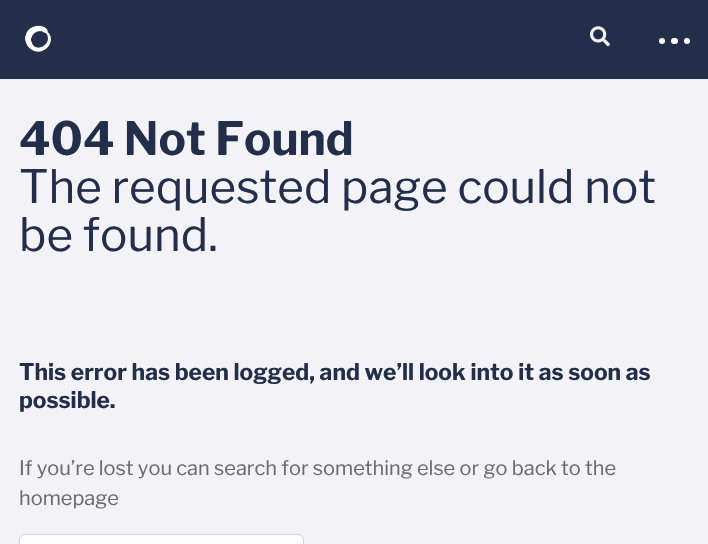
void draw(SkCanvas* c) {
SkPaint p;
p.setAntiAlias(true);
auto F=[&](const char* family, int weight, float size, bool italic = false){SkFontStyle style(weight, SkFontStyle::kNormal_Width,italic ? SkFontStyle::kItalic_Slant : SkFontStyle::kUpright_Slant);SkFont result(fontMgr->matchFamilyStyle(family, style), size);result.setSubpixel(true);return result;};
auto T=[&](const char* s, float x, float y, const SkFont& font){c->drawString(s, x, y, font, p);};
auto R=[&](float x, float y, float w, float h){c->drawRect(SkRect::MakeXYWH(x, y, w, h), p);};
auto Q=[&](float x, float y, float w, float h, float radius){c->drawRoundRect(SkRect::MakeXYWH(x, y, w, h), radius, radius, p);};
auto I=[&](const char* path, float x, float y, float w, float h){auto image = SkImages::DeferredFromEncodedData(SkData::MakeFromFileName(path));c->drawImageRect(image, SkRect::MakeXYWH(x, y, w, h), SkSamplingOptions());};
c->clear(0xfff3f3f7);
p.setColor(0xff232f4a);
R(0,0,708,79);
I("1.png",25,25,26,27);
I("2.png",590,26,20,21);
p.setColor(0xffffffff);
c->drawCircle(662,41,3,p);
Q(671,38,7,6,3);
c->drawCircle(687,41,3,p);
auto f1 = F("Libre Franklin",700,45.75);
p.setColor(0xff232f4a);
T("404 Not Found",19,155,f1);
auto f2 = F("Libre Franklin",400,45.75);
T("The requested page could not",19,203,f2);
T("be found.",19,251,f2);
auto f3 = F("Libre Franklin",700,22.75);
T("This error has been logged, and we’ll look into it as soon as",19,380,f3);
T("possible.",19,408,f3);
auto f4 = F("Libre Franklin",400,20);
p.setColor(0xff6b6b6f);
T("If you’re lost you can search for something else or go back to the",19,475,f4);
T("homepage",19,505,f4);
p.setColor(0xffffffff);
Q(20,535,283,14,5);
p.setStroke(true);
p.setStrokeWidth(1);
p.setColor(0xffced4da);
c->drawRoundRect(SkRect::MakeXYWH(19.5,534.5,284,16),5.5,5.5,p);
}
